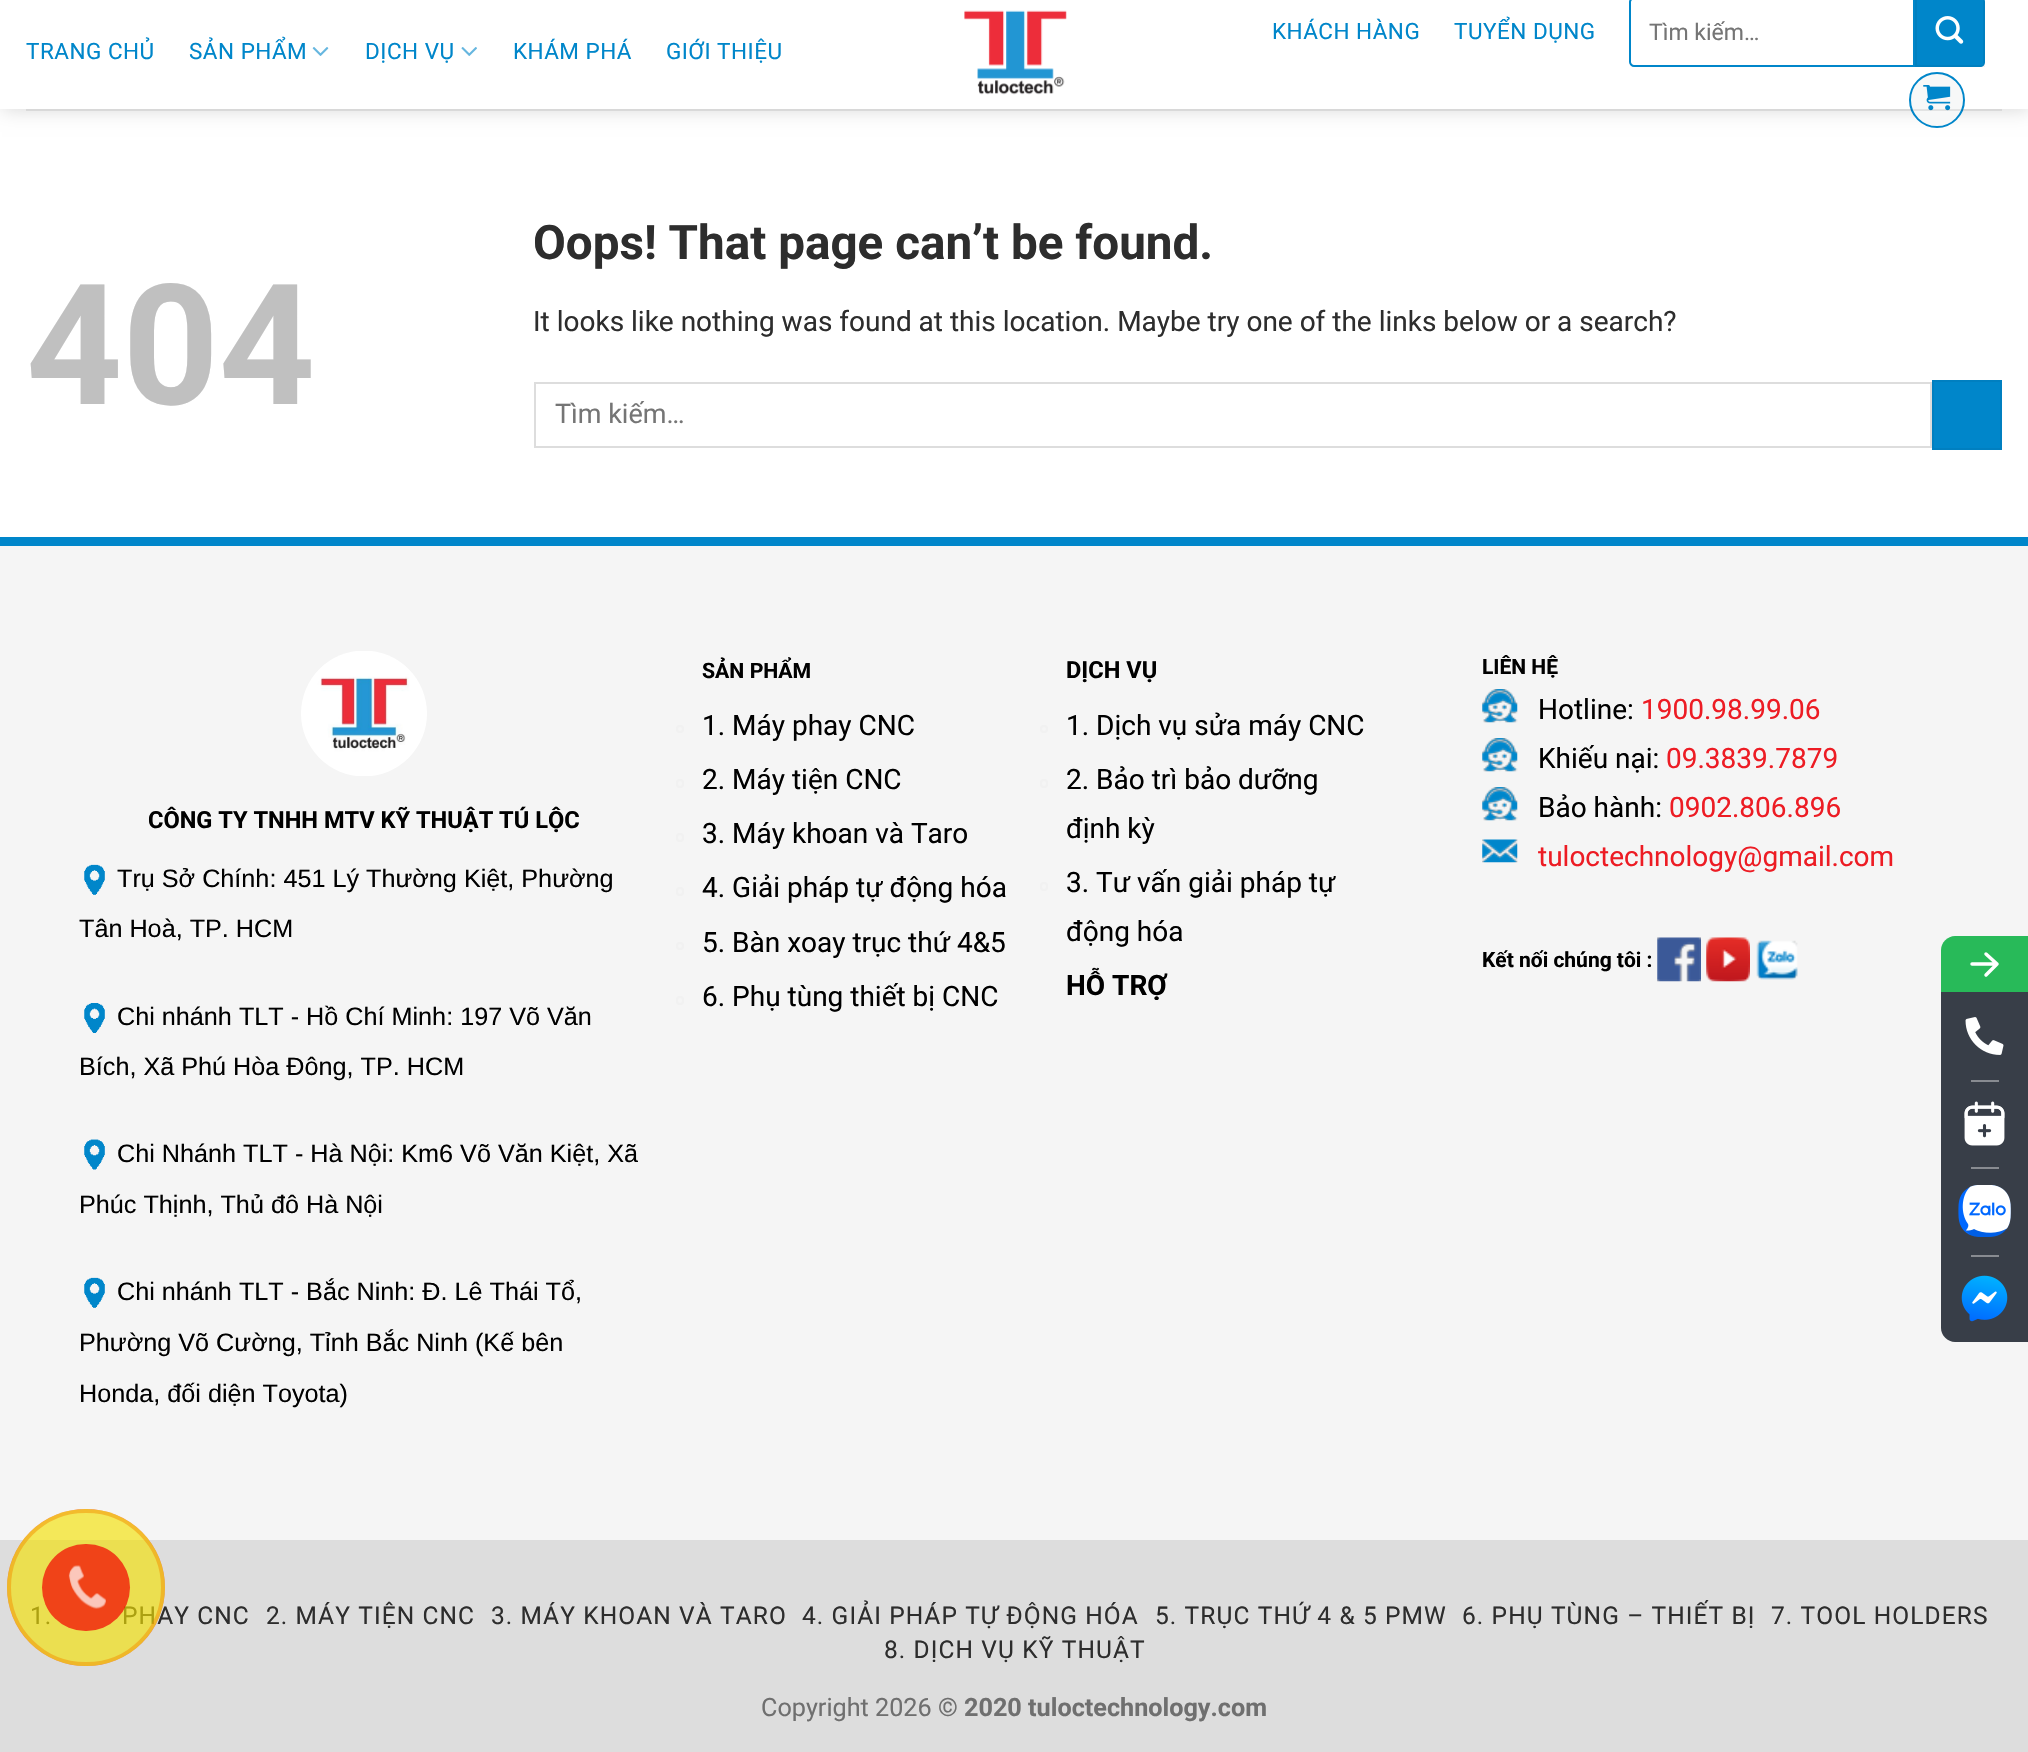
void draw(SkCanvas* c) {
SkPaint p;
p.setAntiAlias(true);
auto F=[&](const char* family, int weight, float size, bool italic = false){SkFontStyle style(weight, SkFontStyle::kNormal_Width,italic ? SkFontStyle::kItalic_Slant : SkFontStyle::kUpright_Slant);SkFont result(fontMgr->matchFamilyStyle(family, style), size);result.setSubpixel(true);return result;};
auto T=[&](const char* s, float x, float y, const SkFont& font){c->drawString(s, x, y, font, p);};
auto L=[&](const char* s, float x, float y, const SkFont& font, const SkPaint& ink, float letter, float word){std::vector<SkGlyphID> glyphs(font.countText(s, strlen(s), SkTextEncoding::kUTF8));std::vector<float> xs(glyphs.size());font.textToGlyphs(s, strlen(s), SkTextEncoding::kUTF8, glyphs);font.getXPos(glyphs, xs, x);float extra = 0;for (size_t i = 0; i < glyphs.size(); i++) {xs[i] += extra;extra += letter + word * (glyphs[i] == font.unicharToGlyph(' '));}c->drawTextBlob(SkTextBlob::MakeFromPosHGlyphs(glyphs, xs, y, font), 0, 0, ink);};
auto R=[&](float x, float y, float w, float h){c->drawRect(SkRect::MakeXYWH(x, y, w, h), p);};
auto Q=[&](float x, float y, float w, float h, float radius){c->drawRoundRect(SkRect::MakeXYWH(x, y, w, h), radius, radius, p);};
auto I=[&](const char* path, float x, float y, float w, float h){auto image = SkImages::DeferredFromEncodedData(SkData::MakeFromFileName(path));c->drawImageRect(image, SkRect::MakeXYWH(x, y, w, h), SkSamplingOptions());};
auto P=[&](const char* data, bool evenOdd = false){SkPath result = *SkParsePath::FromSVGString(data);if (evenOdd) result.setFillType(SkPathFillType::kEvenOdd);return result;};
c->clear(0xffffffff);
p.setColor(0x26000000);
p.setMaskFilter(SkMaskFilter::MakeBlur(kNormal_SkBlurStyle, 9));
c->drawRect(SkRect::MakeXYWH(2,-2,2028,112),p);
p.setMaskFilter(nullptr);
p.setColor(0xffffffff);
R(0,0,2028,109);
I("1.png",964,10,103,85);
auto f1 = F("Roboto",400,22.5);
p.setColor(0xff0086ca);
L("KHÁCH HÀNG",1272,39,f1,p,.5,0);
L("TUYỂN DỤNG",1454,39,f1,p,.5,0);
p.setStroke(true);
p.setStrokeWidth(2);
c->drawPath(P("M1634-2h280v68h-280c-2 0-4-2-4-4v-60c0-2 2-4 4-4z"),p);
auto f2 = F("Roboto",400,23);
p.setStroke(false);
p.setColor(0xff757575);
T("Tìm kiếm…",1649,40,f2);
p.setColor(0xff0086ca);
c->drawPath(P("M1915-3h65c3 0 5 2 5 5v60c0 3-2 5-5 5h-65z"),p);
p.setStroke(true);
p.setColor(0x0d000000);
c->drawRect(SkRect::MakeXYWH(1916,-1,68,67),p);
I("2.png",1935,16,29,28);
p.setStroke(false);
p.setColor(0xfff7f8f8);
c->drawCircle(1937,100,27,p);
p.setStroke(true);
p.setColor(0xff0086ca);
c->drawCircle(1937,100,27,p);
I("3.png",1923,85,28,26);
p.setStroke(false);
L("TRANG CHỦ",26,59,f1,p,.5,0);
L("SẢN PHẨM",189,59,f1,p,.5,0);
I("4.png",312,47,17,9);
L("DỊCH VỤ",365,59,f1,p,.5,0);
I("5.png",461,47,16,9);
L("KHÁM PHÁ",513,59,f1,p,.5,0);
L("GIỚI THIỆU",666,59,f1,p,.5,0);
p.setColor(0x1a2d2d2d);
R(26,109,1976,2);
auto f3 = F("Roboto",700,168);
p.setColor(0xffc0c0c0);
T("404",26,404,f3);
auto f4 = F("Roboto",700,47.6);
p.setColor(0xff2d2d2d);
T("Oops! That page can’t be found.",533,259,f4);
auto f5 = F("Roboto",400,28);
T("It looks like nothing was found at this location. Maybe try one of the links below or a search?",533,331,f5);
p.setStroke(true);
p.setColor(0xffdddddd);
c->drawRect(SkRect::MakeXYWH(535,383,1396,64),p);
auto f6 = F("Roboto",400,27);
p.setStroke(false);
p.setColor(0xff757575);
T("Tìm kiếm…",555,423,f6);
p.setColor(0xff0086ca);
c->drawRect(SkRect::MakeXYWH(1933,381,68,68),p);
p.setStroke(true);
p.setColor(0xff007fc0);
c->drawRect(SkRect::MakeXYWH(1933,381,68,68),p);
p.setStroke(false);
p.setColor(0xfff5f5f5);
R(0,546,2028,994);
p.setColor(0xff0086ca);
R(0,537,2028,9);
I("6.png",301,651,126,125);
auto f7 = F("Roboto",700,23.6);
p.setColor(0xff000000);
T("CÔNG TY TNHH MTV KỸ THUẬT TÚ LỘC",148,828,f7);
I("7.png",84,864,21,31);
auto f8 = F("Liberation Sans",400,25.2);
T("Trụ Sở Chính: 451 Lý Thường Kiệt, Phường",117,887,f8);
T("Tân Hoà, TP. HCM",79,937,f8);
I("8.png",84,1003,21,30);
T("Chi nhánh TLT - Hồ Chí Minh: 197 Võ Văn",117,1025,f8);
T("Bích, Xã Phú Hòa Đông, TP. HCM",79,1075,f8);
I("9.png",84,1139,21,31);
T("Chi Nhánh TLT - Hà Nội: Km6 Võ Văn Kiệt, Xã",117,1162,f8);
T("Phúc Thịnh, Thủ đô Hà Nội",79,1213,f8);
I("7.png",84,1277,21,31);
T("Chi nhánh TLT - Bắc Ninh: Đ. Lê Thái Tổ,",117,1300,f8);
T("Phường Võ Cường, Tỉnh Bắc Ninh (Kế bên",79,1351,f8);
T("Honda, đối diện Toyota)",79,1402,f8);
auto f9 = F("Roboto",700,21.25);
T("SẢN PHẨM",702,678,f9);
p.setStroke(true);
p.setColor(0xfff1f1f1);
c->drawCircle(680,729,3,p);
p.setStroke(false);
p.setColor(0xff000000);
T("1. Máy phay CNC",702,735,f5);
p.setStroke(true);
p.setColor(0xfff1f1f1);
c->drawRoundRect(SkRect::MakeXYWH(677,780,6,7),3,3,p);
p.setStroke(false);
p.setColor(0xff000000);
T("2. Máy tiện CNC",702,789,f5);
p.setStroke(true);
p.setColor(0xfff1f1f1);
c->drawRoundRect(SkRect::MakeXYWH(677,834,6,7),3,3,p);
p.setStroke(false);
p.setColor(0xff000000);
T("3. Máy khoan và Taro",702,843,f5);
p.setStroke(true);
p.setColor(0xfff1f1f1);
c->drawRoundRect(SkRect::MakeXYWH(677,888,6,7),3,3,p);
p.setStroke(false);
p.setColor(0xff000000);
T("4. Giải pháp tự động hóa",702,897,f5);
p.setStroke(true);
p.setColor(0xfff1f1f1);
c->drawCircle(680,946,3,p);
p.setStroke(false);
p.setColor(0xff000000);
T("5. Bàn xoay trục thứ 4&5",702,952,f5);
p.setStroke(true);
p.setColor(0xfff1f1f1);
c->drawRoundRect(SkRect::MakeXYWH(677,997,6,7),3,3,p);
p.setStroke(false);
p.setColor(0xff000000);
T("6. Phụ tùng thiết bị CNC",702,1006,f5);
T("DỊCH VỤ",1066,678,f7);
p.setStroke(true);
p.setColor(0xfff1f1f1);
c->drawCircle(1044,729,3,p);
p.setStroke(false);
p.setColor(0xff000000);
T("1. Dịch vụ sửa máy CNC",1066,735,f5);
p.setStroke(true);
p.setColor(0xfff1f1f1);
c->drawRoundRect(SkRect::MakeXYWH(1041,780,6,7),3,3,p);
p.setStroke(false);
p.setColor(0xff000000);
T("2. Bảo trì bảo dưỡng",1066,789,f5);
T("định kỳ",1066,838,f5);
p.setStroke(true);
p.setColor(0xfff1f1f1);
c->drawRoundRect(SkRect::MakeXYWH(1041,883,6,7),3,3,p);
p.setStroke(false);
p.setColor(0xff000000);
T("3. Tư vấn giải pháp tự",1066,892,f5);
T("động hóa",1066,941,f5);
auto f10 = F("Roboto",700,28);
T("HỖ TRỢ",1066,995,f10);
auto f11 = F("Roboto",700,21);
T("LIÊN HỆ",1482,674,f11);
I("10.png",1482,689,36,34);
T("Hotline:",1538,719,f5);
p.setColor(0xffed1c24);
T("1900.98.99.06",1641,719,f5);
I("10.png",1482,738,36,34);
p.setColor(0xff000000);
T("Khiếu nại:",1538,768,f5);
p.setColor(0xffed1c24);
T("09.3839.7879",1666,768,f5);
I("10.png",1482,787,36,34);
p.setColor(0xff000000);
T("Bảo hành:",1538,817,f5);
p.setColor(0xffed1c24);
T("0902.806.896",1669,817,f5);
I("11.png",1482,839,36,24);
T("tuloctechnology@gmail.com",1538,866,f5);
p.setColor(0xff000000);
T("Kết nối chúng tôi :",1482,967,f11);
I("12.png",1657,937,44,45);
I("13.png",1706,937,44,45);
I("14.png",1756,940,42,40);
p.setColor(0xff28ba59);
c->drawPath(P("M1955 936h73v56h-87v-42c0-7.5 6.5-14 14-14z"),p);
p.setStroke(true);
p.setStrokeWidth(3.5);
p.setStrokeCap(SkPaint::kRound_Cap);
p.setStrokeJoin(SkPaint::kRound_Join);
p.setColor(0xffffffff);
c->drawPath(P("M1997 964l-11 11m11-11l-11-10m11 10h-25"),p);
p.setStroke(false);
p.setColor(0xff383e48);
c->drawPath(P("M1941 992h87v350h-73c-7.5 0-14-6.5-14-14z"),p);
I("15.png",1965,1017,39,38);
p.setColor(0xff888b91);
R(1971,1080,28,2);
I("16.png",1964,1101,41,45);
R(1971,1167,28,2);
I("17.png",1958,1185,53,52);
R(1971,1255,28,2);
I("18.png",1961,1275,47,47);
p.setColor(0xffdddddd);
R(0,1540,2028,212);
auto f12 = F("Roboto",400,24.5);
p.setColor(0xff2d2d2d);
L("1.",30,1624,f12,p,1.1,0);
L("PHAY CNC",122,1624,f12,p,1.1,0);
L("2. MÁY TIỆN CNC",266,1624,f12,p,1.1,0);
L("3. MÁY KHOAN VÀ TARO",491,1624,f12,p,1.1,0);
L("4. GIẢI PHÁP TỰ ĐỘNG HÓA",802,1624,f12,p,1.1,0);
L("5. TRỤC THỨ 4 & 5 PMW",1155,1624,f12,p,1.1,0);
L("6. PHỤ TÙNG – THIẾT BỊ",1462,1624,f12,p,1.1,0);
L("7. TOOL HOLDERS",1771,1624,f12,p,1.1,0);
L("8. DỊCH VỤ KỸ THUẬT",884,1658,f12,p,1.1,0);
auto f13 = F("Roboto",400,25.2);
p.setColor(0xff6f6f6f);
T("Copyright 2026 ©",761,1716,f13);
auto f14 = F("Roboto",700,25.2);
T("2020 tuloctechnology.com",964,1716,f14);
p.setStroke(true);
p.setStrokeWidth(4);
p.setStrokeCap(SkPaint::kButt_Cap);
p.setStrokeJoin(SkPaint::kMiter_Join);
p.setColor(0x80f20000);
c->drawRoundRect(SkRect::MakeXYWH(9,1511,154,153),76.5,76.5,p);
p.setStroke(false);
p.setColor(0xa3f2df00);
Q(7,1509,158,157,78.5);
p.setColor(0xb3f20000);
Q(42,1544,88,87,43.5);
I("19.png",68,1565,38,44);
}
